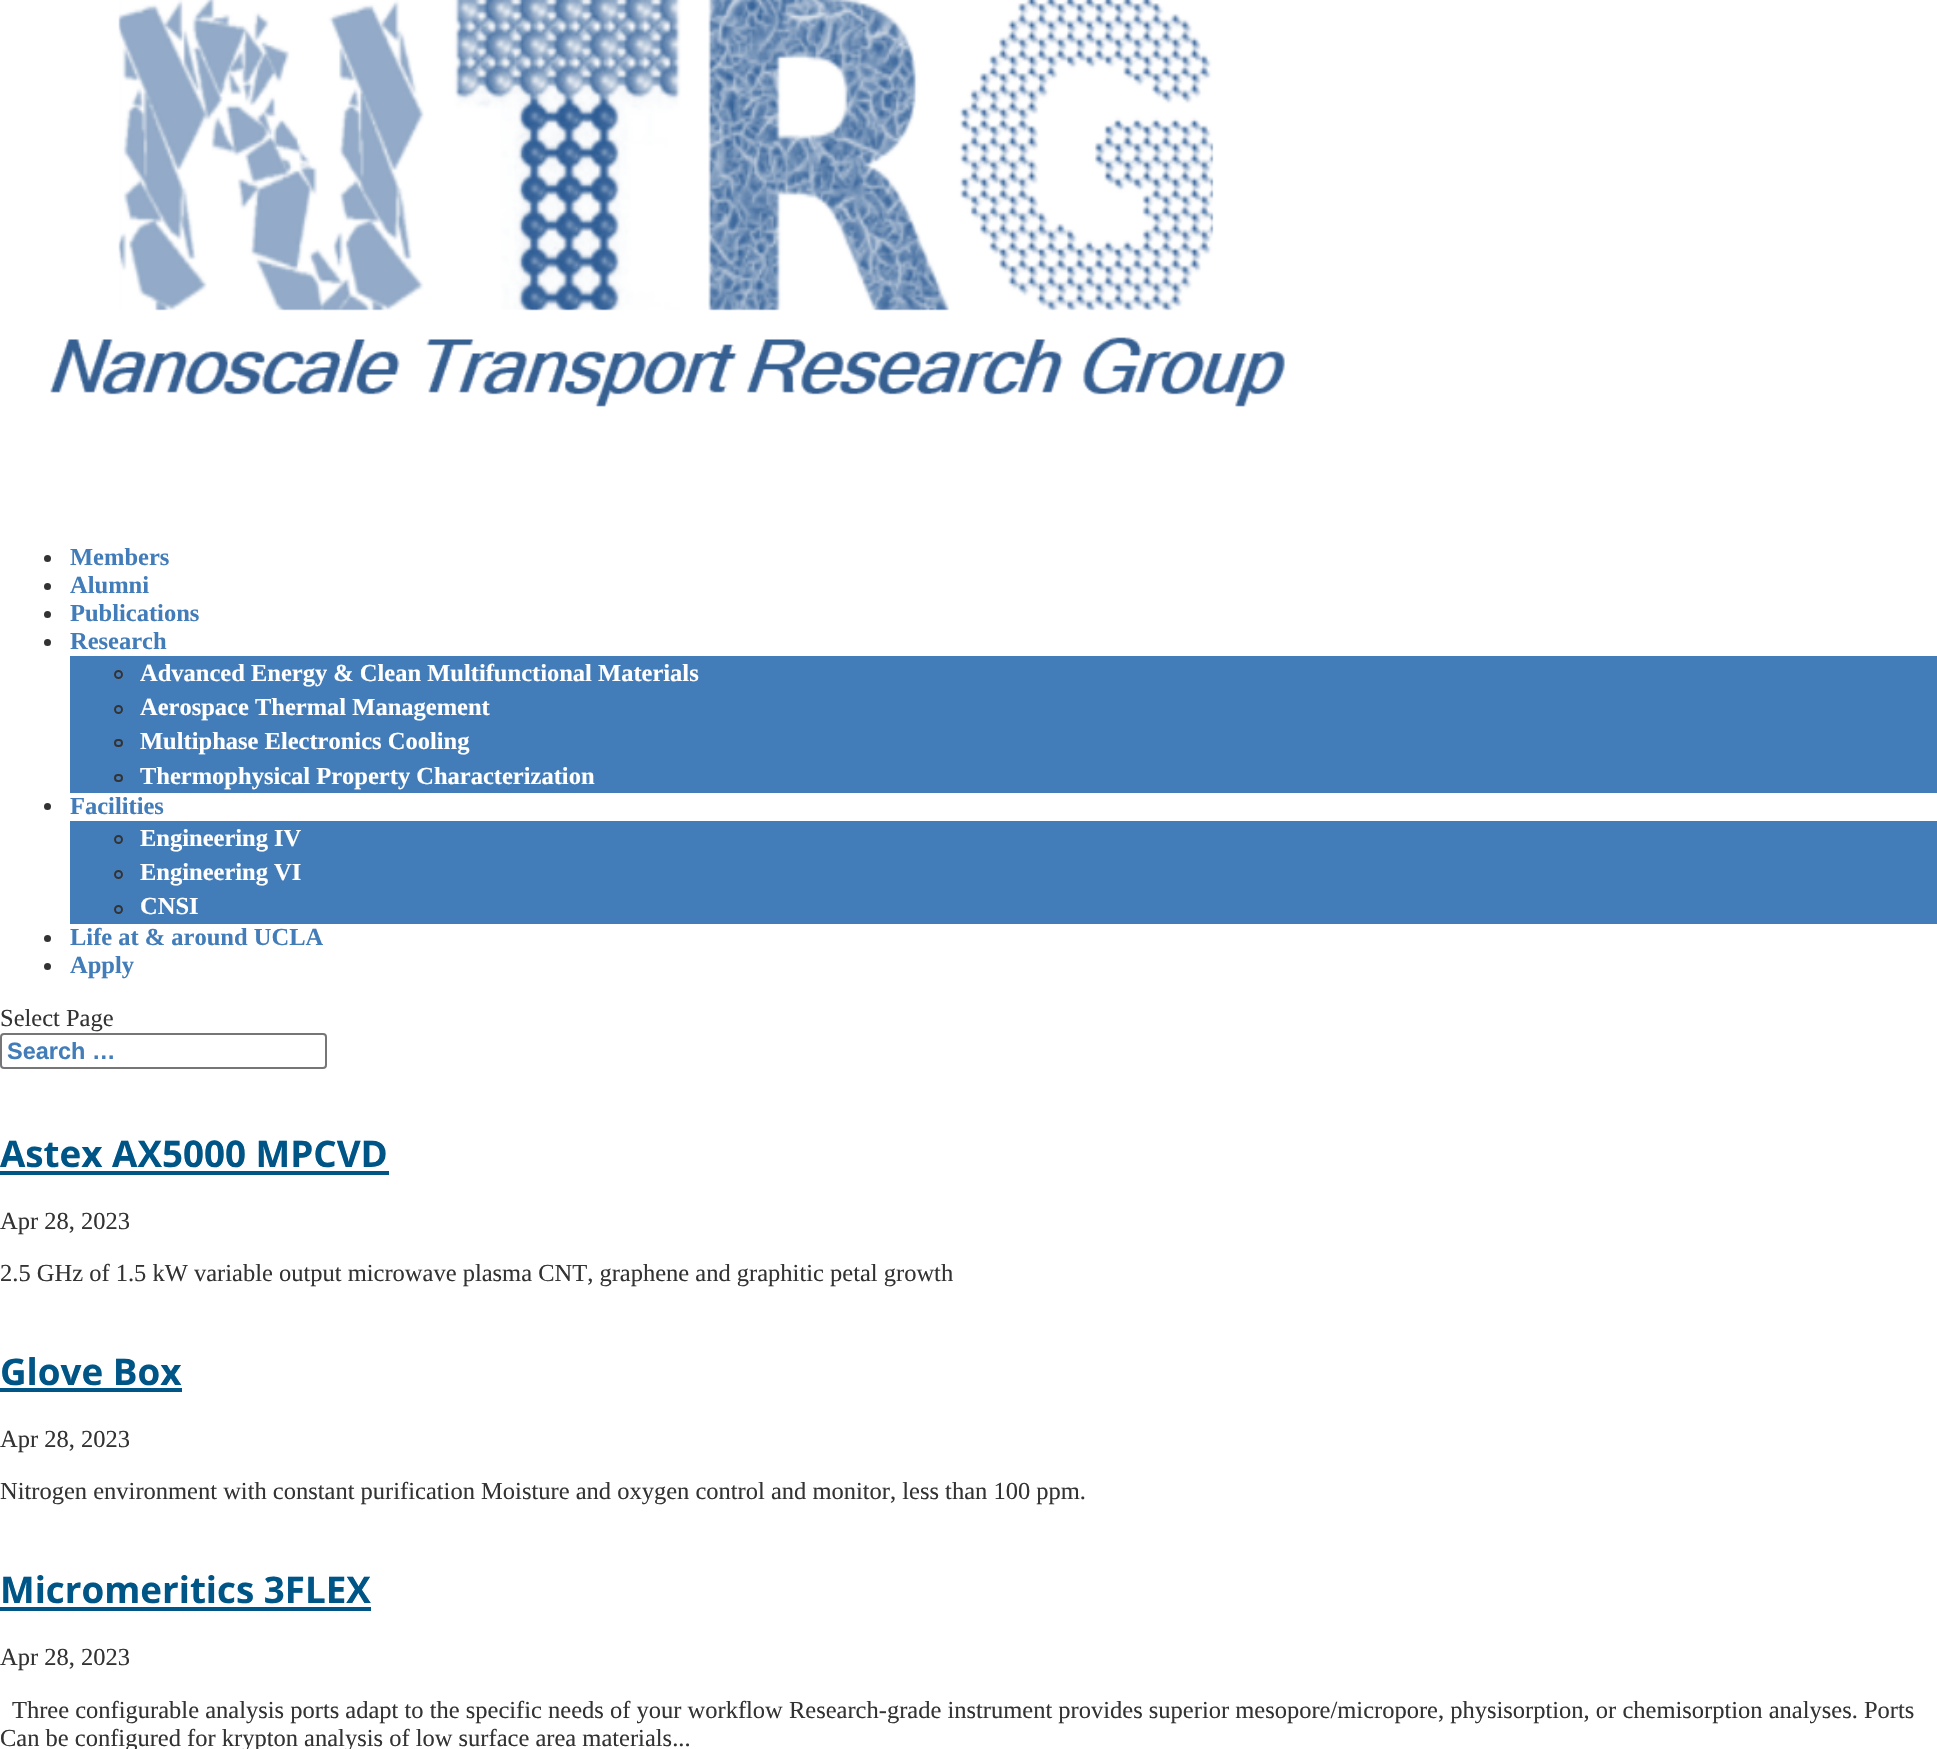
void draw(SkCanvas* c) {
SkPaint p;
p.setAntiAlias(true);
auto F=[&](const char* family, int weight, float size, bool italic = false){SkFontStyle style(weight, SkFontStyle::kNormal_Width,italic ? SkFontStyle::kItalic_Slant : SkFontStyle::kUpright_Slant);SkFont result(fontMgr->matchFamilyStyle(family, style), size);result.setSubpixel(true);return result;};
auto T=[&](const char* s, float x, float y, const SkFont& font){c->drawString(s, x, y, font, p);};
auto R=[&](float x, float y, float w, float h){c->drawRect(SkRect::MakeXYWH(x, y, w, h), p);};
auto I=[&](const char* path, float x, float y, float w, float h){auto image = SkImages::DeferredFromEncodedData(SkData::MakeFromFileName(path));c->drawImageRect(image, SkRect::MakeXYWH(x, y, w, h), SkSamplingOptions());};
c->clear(0xffffffff);
I("1.png",50,0,1235,407);
p.setColor(0xff333333);
c->drawCircle(47.5,558.5,3.5,p);
auto f1 = F("Liberation Serif",700,24.5);
p.setColor(0xff427cb9);
T("Members",70,565,f1);
p.setColor(0xff333333);
c->drawCircle(47.5,586.5,3.5,p);
p.setColor(0xff427cb9);
T("Alumni",70,593,f1);
p.setColor(0xff333333);
c->drawCircle(47.5,614.5,3.5,p);
p.setColor(0xff427cb9);
T("Publications",70,621,f1);
p.setColor(0xff333333);
c->drawCircle(47.5,642.5,3.5,p);
p.setColor(0xff427cb9);
T("Research",70,649,f1);
R(70,656,1867,137);
p.setStroke(true);
p.setStrokeWidth(2);
p.setColor(0xff333333);
c->drawCircle(118.5,674.5,3.5,p);
p.setStroke(false);
p.setColor(0xffffffff);
T("Advanced Energy & Clean Multifunctional Materials",140,681,f1);
p.setStroke(true);
p.setColor(0xff333333);
c->drawCircle(118.5,709.5,3.5,p);
p.setStroke(false);
p.setColor(0xffffffff);
T("Aerospace Thermal Management",140,715,f1);
p.setStroke(true);
p.setColor(0xff333333);
c->drawRoundRect(SkRect::MakeXYWH(115,740,7,6),3,3,p);
p.setStroke(false);
p.setColor(0xffffffff);
T("Multiphase Electronics Cooling",140,749,f1);
p.setStroke(true);
p.setColor(0xff333333);
c->drawRoundRect(SkRect::MakeXYWH(115,775,7,6),3,3,p);
p.setStroke(false);
p.setColor(0xffffffff);
T("Thermophysical Property Characterization",140,784,f1);
p.setColor(0xff333333);
c->drawCircle(47.5,806.5,3.5,p);
p.setColor(0xff427cb9);
T("Facilities",70,814,f1);
R(70,821,1867,103);
p.setStroke(true);
p.setColor(0xff333333);
c->drawCircle(118.5,839.5,3.5,p);
p.setStroke(false);
p.setColor(0xffffffff);
T("Engineering IV",140,846,f1);
p.setStroke(true);
p.setColor(0xff333333);
c->drawCircle(118.5,874.5,3.5,p);
p.setStroke(false);
p.setColor(0xffffffff);
T("Engineering VI",140,880,f1);
p.setStroke(true);
p.setColor(0xff333333);
c->drawCircle(118.5,909.5,3.5,p);
p.setStroke(false);
p.setColor(0xffffffff);
T("CNSI",140,914,f1);
p.setColor(0xff333333);
c->drawCircle(47.5,938.5,3.5,p);
p.setColor(0xff427cb9);
T("Life at & around UCLA",70,945,f1);
p.setColor(0xff333333);
c->drawCircle(47.5,966.5,3.5,p);
p.setColor(0xff427cb9);
T("Apply",70,973,f1);
auto f2 = F("Liberation Serif",400,24.5);
p.setColor(0xff333333);
T("Select Page",0,1026,f2);
p.setStroke(true);
p.setColor(0xff767676);
c->drawRoundRect(SkRect::MakeXYWH(1,1034,325,34),3,3,p);
auto f3 = F("Liberation Sans",700,23.5);
p.setStroke(false);
p.setColor(0xff427cb9);
T("Search …",7,1059,f3);
auto f4 = F("Open Sans",700,36.75);
p.setColor(0xff005587);
T("Astex AX5000 MPCVD",0,1167,f4);
R(0,1171,389,4);
p.setColor(0xff333333);
T("Apr 28, 2023",0,1229,f2);
T("2.5 GHz of 1.5 kW variable output microwave plasma CNT, graphene and graphitic petal growth",0,1281,f2);
p.setColor(0xff005587);
T("Glove Box",0,1385,f4);
R(0,1388,182,4);
p.setColor(0xff333333);
T("Apr 28, 2023",0,1447,f2);
T("Nitrogen environment with constant purification Moisture and oxygen control and monitor, less than 100 ppm.",0,1499,f2);
p.setColor(0xff005587);
T("Micromeritics 3FLEX",0,1603,f4);
R(0,1607,371,4);
p.setColor(0xff333333);
T("Apr 28, 2023",0,1665,f2);
T("Three configurable analysis ports adapt to the specific needs of your workflow Research-grade instrument provides superior mesopore/micropore, physisorption, or chemisorption analyses. Ports",12,1718,f2);
T("Can be configured for krypton analysis of low surface area materials...",0,1746,f2);
}
